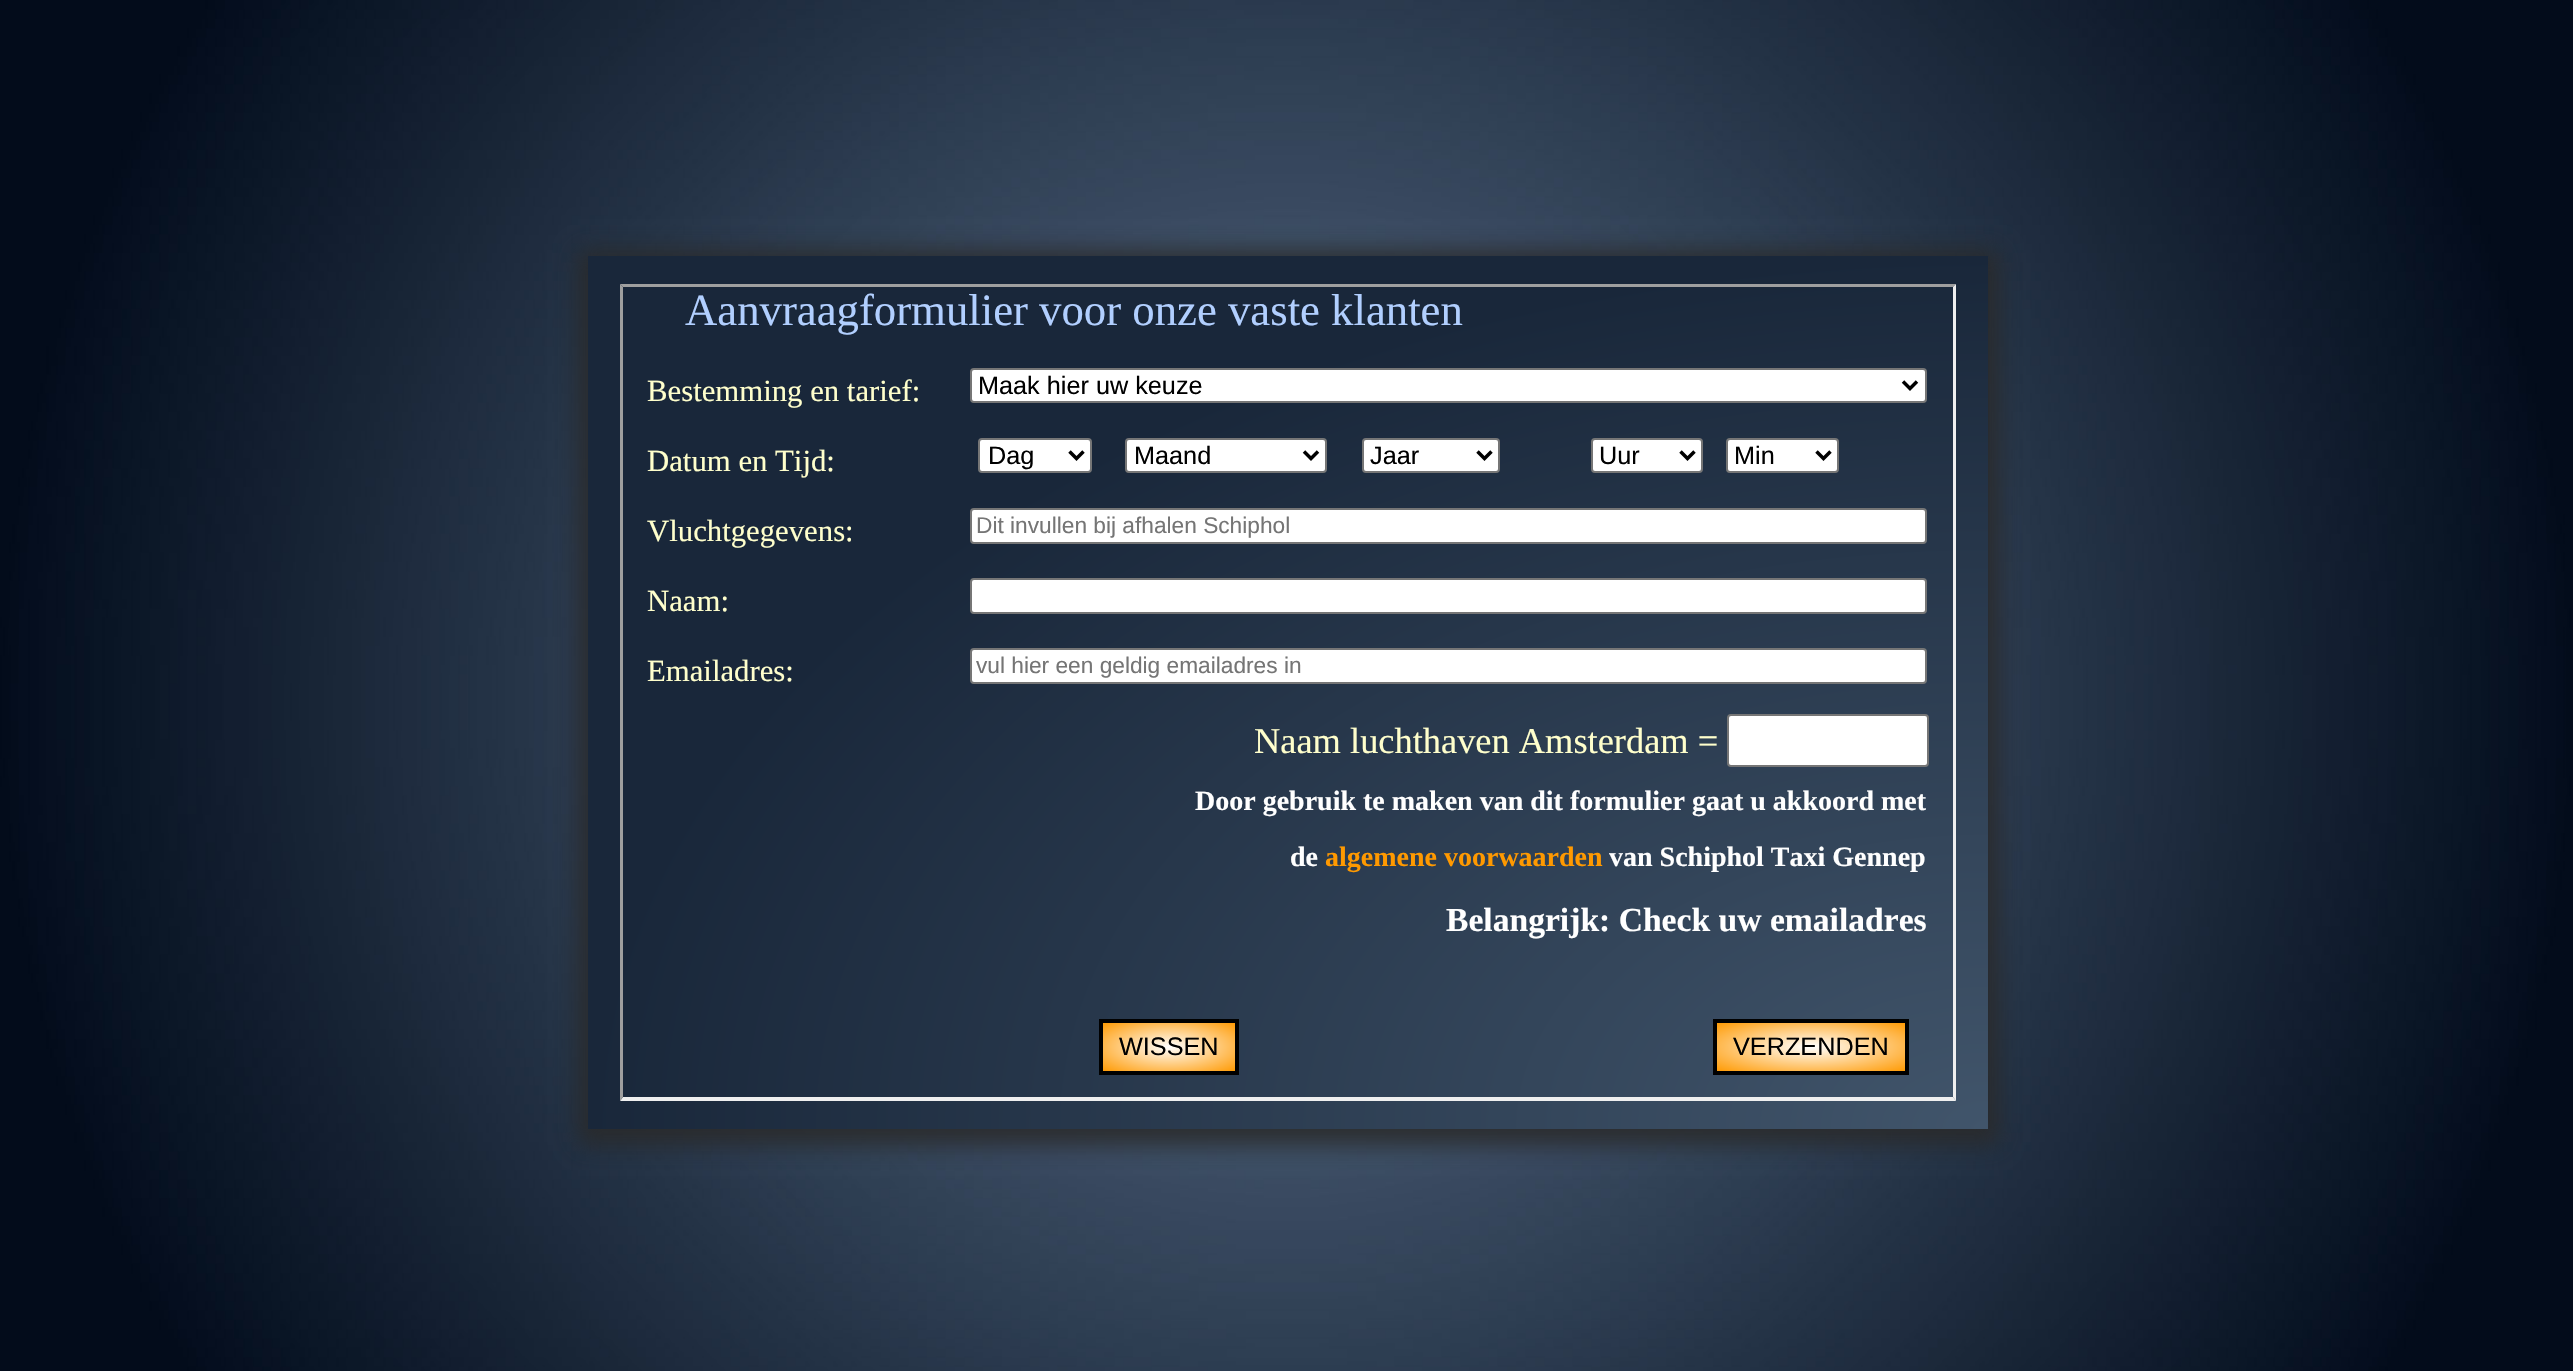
void draw(SkCanvas* c) {
SkPaint p;
p.setAntiAlias(true);
auto F=[&](const char* family, int weight, float size, bool italic = false){SkFontStyle style(weight, SkFontStyle::kNormal_Width,italic ? SkFontStyle::kItalic_Slant : SkFontStyle::kUpright_Slant);SkFont result(fontMgr->matchFamilyStyle(family, style), size);result.setSubpixel(true);return result;};
auto T=[&](const char* s, float x, float y, const SkFont& font){c->drawString(s, x, y, font, p);};
auto R=[&](float x, float y, float w, float h){c->drawRect(SkRect::MakeXYWH(x, y, w, h), p);};
auto I=[&](const char* path, float x, float y, float w, float h){auto image = SkImages::DeferredFromEncodedData(SkData::MakeFromFileName(path));c->drawImageRect(image, SkRect::MakeXYWH(x, y, w, h), SkSamplingOptions());};
auto P=[&](const char* data, bool evenOdd = false){SkPath result = *SkParsePath::FromSVGString(data);if (evenOdd) result.setFillType(SkPathFillType::kEvenOdd);return result;};
c->clear(0xffffffff);
I("1.png",0,0,2573,1371);
p.setColor(0xe0292929);
p.setMaskFilter(SkMaskFilter::MakeBlur(kNormal_SkBlurStyle, 10.5));
c->drawRect(SkRect::MakeXYWH(578,250,1421,895),p);
p.setMaskFilter(nullptr);
{
const SkColor colors[] = {0xff41556b,0xff19273a};
const float stops[] = {0,1};
SkMatrix m = SkMatrix::Translate(1988,1129).preScale(1400,873);
p.setShader(SkGradientShader::MakeRadial({0, 0}, 1, colors, stops, 2, SkTileMode::kClamp, 0, &m));
p.setAlpha(255);
}
R(588,256,1400,873);
p.setShader(nullptr);
p.setColor(0xff9f9f9f);
c->drawPath(P("M620 284h1336l-3 3h-1330z"),p);
p.setColor(0xffefefef);
c->drawPath(P("M1956 284v817l-3-4v-810z"),p);
c->drawPath(P("M1956 1101h-1336l3-4h1330z"),p);
p.setColor(0xff9f9f9f);
c->drawPath(P("M620 1101v-817l3 3v810z"),p);
auto f1 = F("Liberation Serif",400,44.75);
p.setColor(0xffb1cfff);
T("Aanvraagformulier voor onze vaste klanten",685,325,f1);
auto f2 = F("Liberation Serif",400,30.75);
p.setColor(0xffffffcc);
T("Bestemming en tarief:",647,401,f2);
p.setColor(0xffffffff);
c->drawRoundRect(SkRect::MakeXYWH(971,369,955,33),3,3,p);
p.setStroke(true);
p.setStrokeWidth(2);
p.setColor(0xff767676);
c->drawRoundRect(SkRect::MakeXYWH(971,369,955,33),3,3,p);
p.setStrokeWidth(3.5);
p.setColor(0xff000000);
c->drawPath(P("M1903 381.5l7 7l7-7"),p);
auto f3 = F("Liberation Sans",400,25.25);
p.setStroke(false);
T("Maak hier uw keuze",978,394,f3);
p.setColor(0xffffffcc);
T("Datum en Tijd:",647,471,f2);
p.setColor(0xffffffff);
c->drawRoundRect(SkRect::MakeXYWH(979,439,112,33),3,3,p);
p.setStroke(true);
p.setStrokeWidth(2);
p.setColor(0xff767676);
c->drawRoundRect(SkRect::MakeXYWH(979,439,112,33),3,3,p);
p.setStrokeWidth(3.5);
p.setColor(0xff000000);
c->drawPath(P("M1069.5 451.5l7 7l7-7"),p);
p.setStroke(false);
T("Dag",988,464,f3);
p.setColor(0xffffffff);
c->drawRoundRect(SkRect::MakeXYWH(1126,439,200,33),3,3,p);
p.setStroke(true);
p.setStrokeWidth(2);
p.setColor(0xff767676);
c->drawRoundRect(SkRect::MakeXYWH(1126,439,200,33),3,3,p);
p.setStrokeWidth(3.5);
p.setColor(0xff000000);
c->drawPath(P("M1304 451.5l7 7l7-7"),p);
p.setStroke(false);
T("Maand",1134,464,f3);
p.setColor(0xffffffff);
c->drawRoundRect(SkRect::MakeXYWH(1363,439,136,33),3,3,p);
p.setStroke(true);
p.setStrokeWidth(2);
p.setColor(0xff767676);
c->drawRoundRect(SkRect::MakeXYWH(1363,439,136,33),3,3,p);
p.setStrokeWidth(3.5);
p.setColor(0xff000000);
c->drawPath(P("M1477.5 451.5l7 7l7-7"),p);
p.setStroke(false);
T("Jaar",1370,464,f3);
p.setColor(0xffffffff);
c->drawRoundRect(SkRect::MakeXYWH(1592,439,110,33),3,3,p);
p.setStroke(true);
p.setStrokeWidth(2);
p.setColor(0xff767676);
c->drawRoundRect(SkRect::MakeXYWH(1592,439,110,33),3,3,p);
p.setStrokeWidth(3.5);
p.setColor(0xff000000);
c->drawPath(P("M1680.5 451.5l7 7l7-7"),p);
p.setStroke(false);
T("Uur",1599,464,f3);
p.setColor(0xffffffff);
c->drawRoundRect(SkRect::MakeXYWH(1727,439,111,33),3,3,p);
p.setStroke(true);
p.setStrokeWidth(2);
p.setColor(0xff767676);
c->drawRoundRect(SkRect::MakeXYWH(1727,439,111,33),3,3,p);
p.setStrokeWidth(3.5);
p.setColor(0xff000000);
c->drawPath(P("M1816.5 451.5l7 7l7-7"),p);
p.setStroke(false);
T("Min",1734,464,f3);
p.setColor(0xffffffcc);
T("Vluchtgegevens:",647,541,f2);
p.setColor(0xffffffff);
c->drawRoundRect(SkRect::MakeXYWH(971,509,955,34),3,3,p);
p.setStroke(true);
p.setStrokeWidth(2);
p.setColor(0xff767676);
c->drawRoundRect(SkRect::MakeXYWH(971,509,955,34),3,3,p);
auto f4 = F("Liberation Sans",400,22.7);
p.setStroke(false);
p.setColor(0xff757575);
T("Dit invullen bij afhalen Schiphol",976,533,f4);
p.setColor(0xffffffcc);
T("Naam:",647,611,f2);
p.setColor(0xffffffff);
c->drawRoundRect(SkRect::MakeXYWH(971,579,955,34),3,3,p);
p.setStroke(true);
p.setColor(0xff767676);
c->drawRoundRect(SkRect::MakeXYWH(971,579,955,34),3,3,p);
p.setStroke(false);
p.setColor(0xffffffcc);
T("Emailadres:",647,681,f2);
p.setColor(0xffffffff);
c->drawRoundRect(SkRect::MakeXYWH(971,649,955,34),3,3,p);
p.setStroke(true);
p.setColor(0xff767676);
c->drawRoundRect(SkRect::MakeXYWH(971,649,955,34),3,3,p);
p.setStroke(false);
p.setColor(0xff757575);
T("vul hier een geldig emailadres in",976,673,f4);
auto f5 = F("Liberation Serif",400,36.4);
p.setColor(0xffffffcc);
T("Naam luchthaven Amsterdam =",1254,753,f5);
p.setColor(0xffffffff);
c->drawRoundRect(SkRect::MakeXYWH(1728,715,200,51),3,3,p);
p.setStroke(true);
p.setColor(0xff767676);
c->drawRoundRect(SkRect::MakeXYWH(1728,715,200,51),3,3,p);
auto f6 = F("Liberation Serif",700,28);
p.setStroke(false);
p.setColor(0xffffffff);
T("Door gebruik te maken van dit formulier gaat u akkoord met",1195,810,f6);
T("de",1290,866,f6);
p.setColor(0xffff9900);
T("algemene voorwaarden",1325,866,f6);
p.setColor(0xffffffff);
T("van Schiphol Taxi Gennep",1609,866,f6);
auto f7 = F("Liberation Serif",700,33.6);
T("Belangrijk: Check uw emailadres",1446,931,f7);
{
const SkColor colors[] = {0xffffffff,0xffff9900};
const float stops[] = {0,1};
SkMatrix m = SkMatrix::Translate(1169,1047).preScale(94,35);
p.setShader(SkGradientShader::MakeRadial({0, 0}, 1, colors, stops, 2, SkTileMode::kClamp, 0, &m));
p.setAlpha(255);
}
R(1103,1023,132,48);
p.setStroke(true);
p.setStrokeWidth(4);
p.setShader(nullptr);
p.setColor(0xff000000);
c->drawRect(SkRect::MakeXYWH(1101,1021,136,52),p);
p.setStroke(false);
T("WISSEN",1119,1055,f3);
{
const SkColor colors[] = {0xffffffff,0xffff9900};
const float stops[] = {0,1};
SkMatrix m = SkMatrix::Translate(1811,1047).preScale(134,35);
p.setShader(SkGradientShader::MakeRadial({0, 0}, 1, colors, stops, 2, SkTileMode::kClamp, 0, &m));
p.setAlpha(255);
}
R(1717,1023,188,48);
p.setStroke(true);
p.setShader(nullptr);
p.setColor(0xff000000);
c->drawRect(SkRect::MakeXYWH(1715,1021,192,52),p);
p.setStroke(false);
T("VERZENDEN",1733,1055,f3);
}
